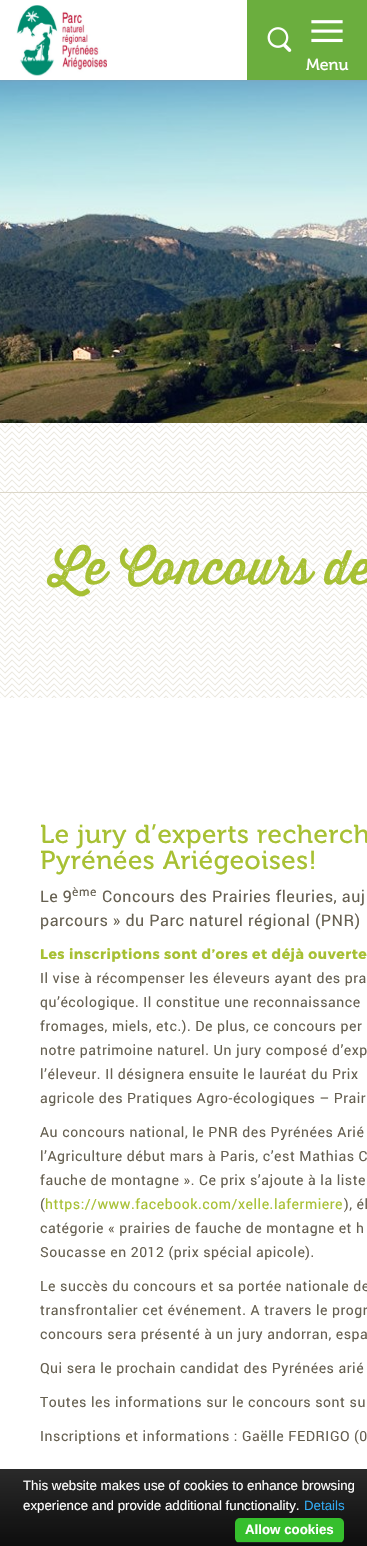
void draw(SkCanvas* c) {
SkPaint p;
p.setAntiAlias(true);
auto F=[&](const char* family, int weight, float size, bool italic = false){SkFontStyle style(weight, SkFontStyle::kNormal_Width,italic ? SkFontStyle::kItalic_Slant : SkFontStyle::kUpright_Slant);SkFont result(fontMgr->matchFamilyStyle(family, style), size);result.setSubpixel(true);return result;};
auto T=[&](const char* s, float x, float y, const SkFont& font){c->drawString(s, x, y, font, p);};
auto L=[&](const char* s, float x, float y, const SkFont& font, const SkPaint& ink, float letter, float word){std::vector<SkGlyphID> glyphs(font.countText(s, strlen(s), SkTextEncoding::kUTF8));std::vector<float> xs(glyphs.size());font.textToGlyphs(s, strlen(s), SkTextEncoding::kUTF8, glyphs);font.getXPos(glyphs, xs, x);float extra = 0;for (size_t i = 0; i < glyphs.size(); i++) {xs[i] += extra;extra += letter + word * (glyphs[i] == font.unicharToGlyph(' '));}c->drawTextBlob(SkTextBlob::MakeFromPosHGlyphs(glyphs, xs, y, font), 0, 0, ink);};
auto R=[&](float x, float y, float w, float h){c->drawRect(SkRect::MakeXYWH(x, y, w, h), p);};
auto Q=[&](float x, float y, float w, float h, float radius){c->drawRoundRect(SkRect::MakeXYWH(x, y, w, h), radius, radius, p);};
auto I=[&](const char* path, float x, float y, float w, float h){auto image = SkImages::DeferredFromEncodedData(SkData::MakeFromFileName(path));c->drawImageRect(image, SkRect::MakeXYWH(x, y, w, h), SkSamplingOptions());};
c->clear(0xffffffff);
I("1.png",0,423,367,275);
I("5.png",0,80,367,343);
p.setColor(0x4d969696);
p.setMaskFilter(SkMaskFilter::MakeBlur(kNormal_SkBlurStyle, 1));
c->drawRect(SkRect::MakeXYWH(0,1,367,80),p);
p.setMaskFilter(nullptr);
p.setColor(0xffffffff);
R(0,0,247,80);
I("2.png",16,5,91,71);
p.setColor(0xff6bae3e);
R(247,0,120,80);
I("3.png",267,27,25,25);
I("4.png",311,20,32,23);
auto f1 = F("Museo",400,16);
p.setColor(0xffffffff);
T("Menu",306,70,f1);
p.setColor(0xffdcd7c9);
R(0,492,367,1);
auto f2 = F("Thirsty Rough",400,47);
p.setColor(0xffa7c033);
L("Le Concours de",50,584,f2,p,.55,0);
auto f3 = F("Museo",400,26);
L("Le jury d’experts recherch",40,843,f3,p,.55,0);
L("Pyrénées Ariégeoises!",40,869,f3,p,.55,0);
auto f4 = F("roboto",400,16);
p.setColor(0xff666051);
L("Le 9",40,902,f4,p,.55,0);
auto f5 = F("roboto",400,12);
L("ème",72,896,f5,p,.55,0);
L("Concours des Prairies fleuries, auj",102,902,f4,p,.55,0);
L("parcours » du Parc naturel régional (PNR)",40,926,f4,p,.55,0);
auto f6 = F("Montserrat",700,14);
p.setColor(0xffa7c033);
L("Les inscriptions sont d’ores et déjà ouverte",40,959,f6,p,.55,0);
auto f7 = F("roboto",400,14);
p.setColor(0xff666051);
L("Il vise à récompenser les éleveurs ayant des pra",40,983,f7,p,.55,0);
L("qu’écologique. Il constitue une reconnaissance",40,1007,f7,p,.55,0);
L("fromages, miels, etc.). De plus, ce concours per",40,1031,f7,p,.55,0);
L("notre patrimoine naturel. Un jury composé d’exp",40,1055,f7,p,.55,0);
L("l’éleveur. Il désignera ensuite le lauréat du Prix",40,1079,f7,p,.55,0);
L("agricole des Pratiques Agro-écologiques – Prair",40,1103,f7,p,.55,0);
L("Au concours national, le PNR des Pyrénées Arié",40,1137,f7,p,.55,0);
L("l’Agriculture début mars à Paris, c’est Mathias C",40,1161,f7,p,.55,0);
L("fauche de montagne ». Ce prix s’ajoute à la liste",40,1185,f7,p,.55,0);
L("(",40,1209,f7,p,.55,0);
p.setColor(0xffa7c033);
L("https://www.facebook.com/xelle.lafermiere",45,1209,f7,p,.55,0);
p.setColor(0xff666051);
L("), él",344,1209,f7,p,.55,0);
L("catégorie « prairies de fauche de montagne et h",40,1233,f7,p,.55,0);
L("Soucasse en 2012 (prix spécial apicole).",40,1257,f7,p,.55,0);
L("Le succès du concours et sa portée nationale de",40,1291,f7,p,.55,0);
L("transfrontalier cet événement. A travers le progr",40,1315,f7,p,.55,0);
L("concours sera présenté à un jury andorran, espa",40,1339,f7,p,.55,0);
L("Qui sera le prochain candidat des Pyrénées arié",40,1373,f7,p,.55,0);
L("Toutes les informations sur le concours sont su",40,1407,f7,p,.55,0);
L("Inscriptions et informations : Gaëlle FEDRIGO (0",40,1441,f7,p,.55,0);
{
const SkColor colors[] = {0xf21e1e1e,0xf2000000};
const float stops[] = {0,1};
const SkPoint ends[] = {{184,1469}, {184,1546}};
p.setShader(SkGradientShader::MakeLinear(ends, colors, stops, 2, SkTileMode::kClamp));
p.setAlpha(255);
}
R(0,1469,367,77);
auto f8 = F("Liberation Sans",400,13.3);
p.setShader(nullptr);
p.setColor(0xffffffff);
T("This website makes use of cookies to enhance browsing",23,1490,f8);
T("experience and provide additional functionality.",23,1510,f8);
p.setColor(0xff31a8f0);
T("Details",304,1510,f8);
p.setColor(0xff36bf2d);
Q(235,1518,109,25,5);
p.setColor(0xff222222);
R(238,1542,104,1);
auto f9 = F("Liberation Sans",700,13.3);
p.setColor(0xffffffff);
T("Allow cookies",245,1534,f9);
}
